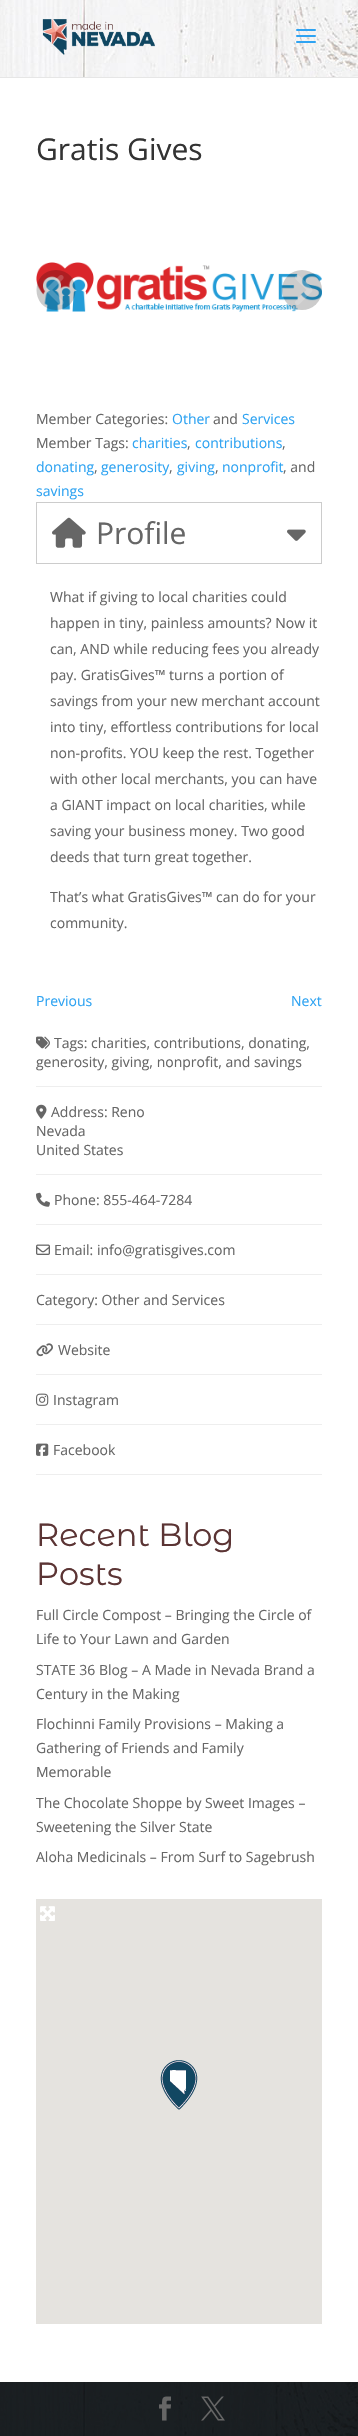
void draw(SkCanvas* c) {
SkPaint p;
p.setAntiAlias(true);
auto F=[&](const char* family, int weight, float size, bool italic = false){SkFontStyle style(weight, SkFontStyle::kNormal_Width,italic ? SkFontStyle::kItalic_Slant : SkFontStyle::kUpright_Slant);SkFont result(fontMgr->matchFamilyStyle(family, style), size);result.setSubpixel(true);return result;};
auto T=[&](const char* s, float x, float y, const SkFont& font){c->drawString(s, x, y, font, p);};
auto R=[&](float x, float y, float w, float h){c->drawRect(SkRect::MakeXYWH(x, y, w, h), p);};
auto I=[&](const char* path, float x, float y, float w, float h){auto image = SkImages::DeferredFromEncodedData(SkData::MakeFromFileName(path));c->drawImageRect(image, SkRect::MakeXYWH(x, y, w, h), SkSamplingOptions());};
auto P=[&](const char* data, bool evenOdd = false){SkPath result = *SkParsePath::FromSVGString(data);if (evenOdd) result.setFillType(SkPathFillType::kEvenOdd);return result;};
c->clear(0xffffffff);
p.setColor(0xffe6e6e6);
R(0,77,358,1);
I("1.png",0,0,358,77);
I("2.png",42,19,113,36);
I("3.png",296,29,20,14);
auto f1 = F("Open Sans",400,30);
p.setColor(0xff333333);
T("Gratis Gives",36,160,f1);
I("4.png",36,262,286,50);
p.setColor(0x33000000);
c->drawPath(P("M56 270c-26 0-26 40 0 40c26 0 26-40 0-40z"),p);
I("5.png",46,275,18,30);
c->drawCircle(302,290,20,p);
I("6.png",295,275,18,30);
auto f2 = F("Open Sans",400,14);
p.setColor(0xff666666);
T("Member Categories:",36,424,f2);
p.setColor(0xff2ea3f2);
T("Other",172,424,f2);
p.setColor(0xff666666);
T("and",213,424,f2);
p.setColor(0xff2ea3f2);
T("Services",242,424,f2);
p.setColor(0xff666666);
T("Member Tags:",36,448,f2);
p.setColor(0xff2ea3f2);
T("charities",132,448,f2);
p.setColor(0xff666666);
T(",",187,448,f2);
p.setColor(0xff2ea3f2);
T("contributions",195,448,f2);
p.setColor(0xff666666);
T(",",282,448,f2);
p.setColor(0xff2ea3f2);
T("donating",36,472,f2);
p.setColor(0xff666666);
T(",",94,472,f2);
p.setColor(0xff2ea3f2);
T("generosity",101,472,f2);
p.setColor(0xff666666);
T(",",169,472,f2);
p.setColor(0xff2ea3f2);
T("giving",177,472,f2);
p.setColor(0xff666666);
T(",",215,472,f2);
p.setColor(0xff2ea3f2);
T("nonprofit",222,472,f2);
p.setColor(0xff666666);
T(", and",283,472,f2);
p.setColor(0xff2ea3f2);
T("savings",36,496,f2);
p.setStroke(true);
p.setStrokeWidth(1);
p.setColor(0xffcccccc);
c->drawRect(SkRect::MakeXYWH(36.5,502.5,285,61),p);
I("7.png",52,517,34,31);
p.setStroke(false);
p.setColor(0xff666666);
T("Profile",96,544,f1);
I("8.png",287,529,19,12);
T("What if giving to local charities could",50,602,f2);
T("happen in tiny, painless amounts? Now it",50,628,f2);
T("can, AND while reducing fees you already",50,654,f2);
T("pay. GratisGives™ turns a portion of",50,680,f2);
T("savings from your new merchant account",50,706,f2);
T("into tiny, effortless contributions for local",50,732,f2);
T("non-profits. YOU keep the rest. Together",50,758,f2);
T("with other local merchants, you can have",50,784,f2);
T("a GIANT impact on local charities, while",50,810,f2);
T("saving your business money. Two good",50,836,f2);
T("deeds that turn great together.",50,862,f2);
T("That’s what GratisGives™ can do for your",50,902,f2);
T("community.",50,928,f2);
p.setColor(0xff2ea3f2);
T("Previous",36,1006,f2);
T("Next",291,1006,f2);
p.setColor(0xffeeeeee);
R(36,1086,286,1);
I("9.png",36,1036,14,13);
p.setColor(0xff666666);
T("Tags: charities, contributions, donating,",54,1048,f2);
T("generosity, giving, nonprofit, and savings",36,1067,f2);
p.setColor(0xffeeeeee);
R(36,1174,286,1);
I("10.png",36,1104,11,15);
p.setColor(0xff666666);
T("Address: Reno",51,1117,f2);
T("Nevada",36,1136,f2);
T("United States",36,1155,f2);
p.setColor(0xffeeeeee);
R(36,1224,286,1);
I("11.png",36,1192,14,15);
p.setColor(0xff666666);
T("Phone: 855-464-7284",54,1205,f2);
p.setColor(0xffeeeeee);
R(36,1274,286,1);
I("12.png",36,1244,14,11);
p.setColor(0xff666666);
T("Email: info@gratisgives.com",54,1255,f2);
p.setColor(0xffeeeeee);
R(36,1324,286,1);
p.setColor(0xff666666);
T("Category: Other and Services",36,1305,f2);
p.setColor(0xffeeeeee);
R(36,1374,286,1);
I("13.png",36,1343,17,14);
p.setColor(0xff666666);
T("Website",58,1355,f2);
p.setColor(0xffeeeeee);
R(36,1424,286,1);
I("14.png",36,1393,13,13);
p.setColor(0xff666666);
T("Instagram",53,1405,f2);
p.setColor(0xffeeeeee);
R(36,1474,286,1);
I("15.png",36,1443,13,13);
p.setColor(0xff666666);
T("Facebook",53,1455,f2);
auto f3 = F("Montserrat Alternates",400,32);
p.setColor(0xff5b3434);
T("Recent Blog",36,1546,f3);
T("Posts",36,1585,f3);
p.setColor(0xff666666);
T("Full Circle Compost – Bringing the Circle of",36,1620,f2);
T("Life to Your Lawn and Garden",36,1644,f2);
T("STATE 36 Blog – A Made in Nevada Brand a",36,1675,f2);
T("Century in the Making",36,1699,f2);
T("Flochinni Family Provisions – Making a",36,1729,f2);
T("Gathering of Friends and Family",36,1753,f2);
T("Memorable",36,1777,f2);
T("The Chocolate Shoppe by Sweet Images –",36,1808,f2);
T("Sweetening the Silver State",36,1832,f2);
T("Aloha Medicinals – From Surf to Sagebrush",36,1862,f2);
p.setColor(0xffe5e3df);
R(36,1899,286,425);
I("16.png",160,2060,38,50);
I("17.png",40,1906,15,15);
I("18.png",0,2382,358,54);
I("19.png",159,2396,12,25);
I("20.png",201,2396,24,25);
}
